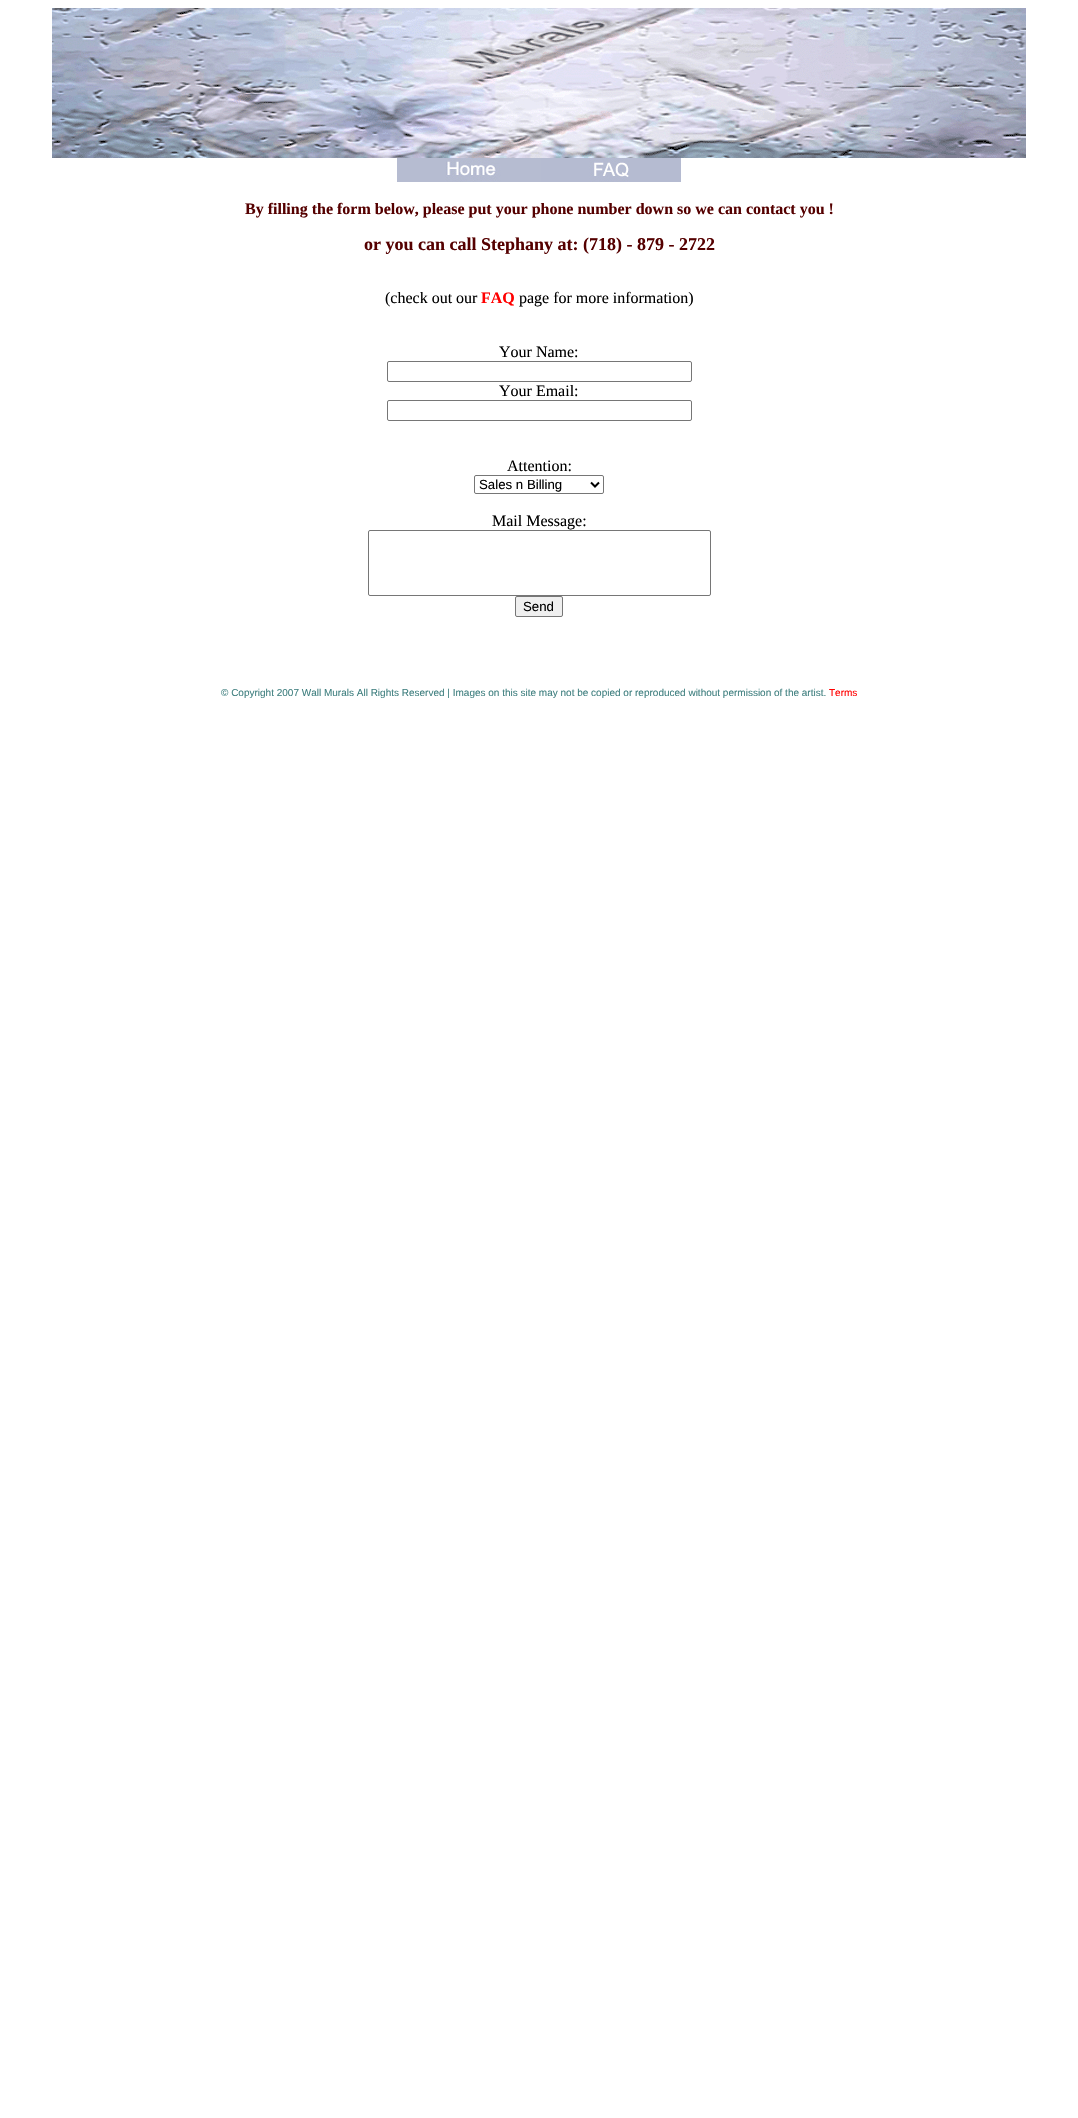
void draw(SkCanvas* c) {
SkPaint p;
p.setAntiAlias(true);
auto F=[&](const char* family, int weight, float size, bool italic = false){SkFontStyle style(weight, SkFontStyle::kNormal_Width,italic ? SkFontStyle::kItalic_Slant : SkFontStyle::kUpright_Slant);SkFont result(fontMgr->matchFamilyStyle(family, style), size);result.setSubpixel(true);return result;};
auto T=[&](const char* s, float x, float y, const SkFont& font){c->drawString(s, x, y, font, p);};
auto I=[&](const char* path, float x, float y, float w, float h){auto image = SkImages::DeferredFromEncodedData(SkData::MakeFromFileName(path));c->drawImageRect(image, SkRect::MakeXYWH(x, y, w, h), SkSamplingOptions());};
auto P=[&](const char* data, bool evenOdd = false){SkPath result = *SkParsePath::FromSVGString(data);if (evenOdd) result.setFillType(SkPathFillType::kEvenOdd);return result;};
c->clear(0xffffffff);
I("1.png",52,8,974,150);
I("2.png",397,158,144,24);
I("3.png",541,158,140,24);
auto f1 = F("Liberation Serif",700,16);
p.setColor(0xff550000);
T("By filling the form below, please put your phone number down so we can contact you !",245,214,f1);
auto f2 = F("Liberation Serif",700,18);
T("or you can call Stephany at: (718) - 879 - 2722",364,250,f2);
auto f3 = F("Liberation Serif",400,16);
p.setColor(0xff000000);
T("(check out our",385,303,f3);
p.setColor(0xffff0000);
T("FAQ",481,303,f1);
p.setColor(0xff000000);
T("page for more information)",519,303,f3);
T("Your Name:",499,357,f3);
p.setStroke(true);
p.setStrokeWidth(1);
p.setColor(0xff767676);
c->drawRoundRect(SkRect::MakeXYWH(387.5,361.5,304,20),1.5,1.5,p);
p.setStroke(false);
p.setColor(0xff000000);
T("Your Email:",499,396,f3);
p.setStroke(true);
p.setColor(0xff767676);
c->drawRoundRect(SkRect::MakeXYWH(387.5,400.5,304,20),1.5,1.5,p);
p.setStroke(false);
p.setColor(0xff000000);
T("Attention:",507,471,f3);
p.setStroke(true);
p.setColor(0xff767676);
c->drawRoundRect(SkRect::MakeXYWH(474.5,475.5,129,18),1.5,1.5,p);
p.setStrokeWidth(2);
p.setColor(0xff000000);
c->drawPath(P("M591 482.5l4 4l4-4"),p);
auto f4 = F("Liberation Sans",400,13.25);
p.setStroke(false);
T("Sales n Billing",479,489,f4);
T("Mail Message:",492,526,f3);
p.setStroke(true);
p.setStrokeWidth(1);
p.setColor(0xff767676);
c->drawRoundRect(SkRect::MakeXYWH(368.5,530.5,342,65),1.5,1.5,p);
p.setStroke(false);
p.setColor(0xffefefef);
c->drawRoundRect(SkRect::MakeXYWH(515.5,596.5,47,20),1.5,1.5,p);
p.setStroke(true);
p.setColor(0xff767676);
c->drawRoundRect(SkRect::MakeXYWH(515.5,596.5,47,20),1.5,1.5,p);
p.setStroke(false);
p.setColor(0xff000000);
T("Send",523,611,f4);
auto f5 = F("Liberation Sans",400,10);
p.setColor(0xff408080);
T("© Copyright 2007 Wall Murals All Rights Reserved | Images on this site may not be copied or reproduced without permission of the artist.",221,696,f5);
p.setColor(0xffff0000);
T("Terms",829,696,f5);
}
